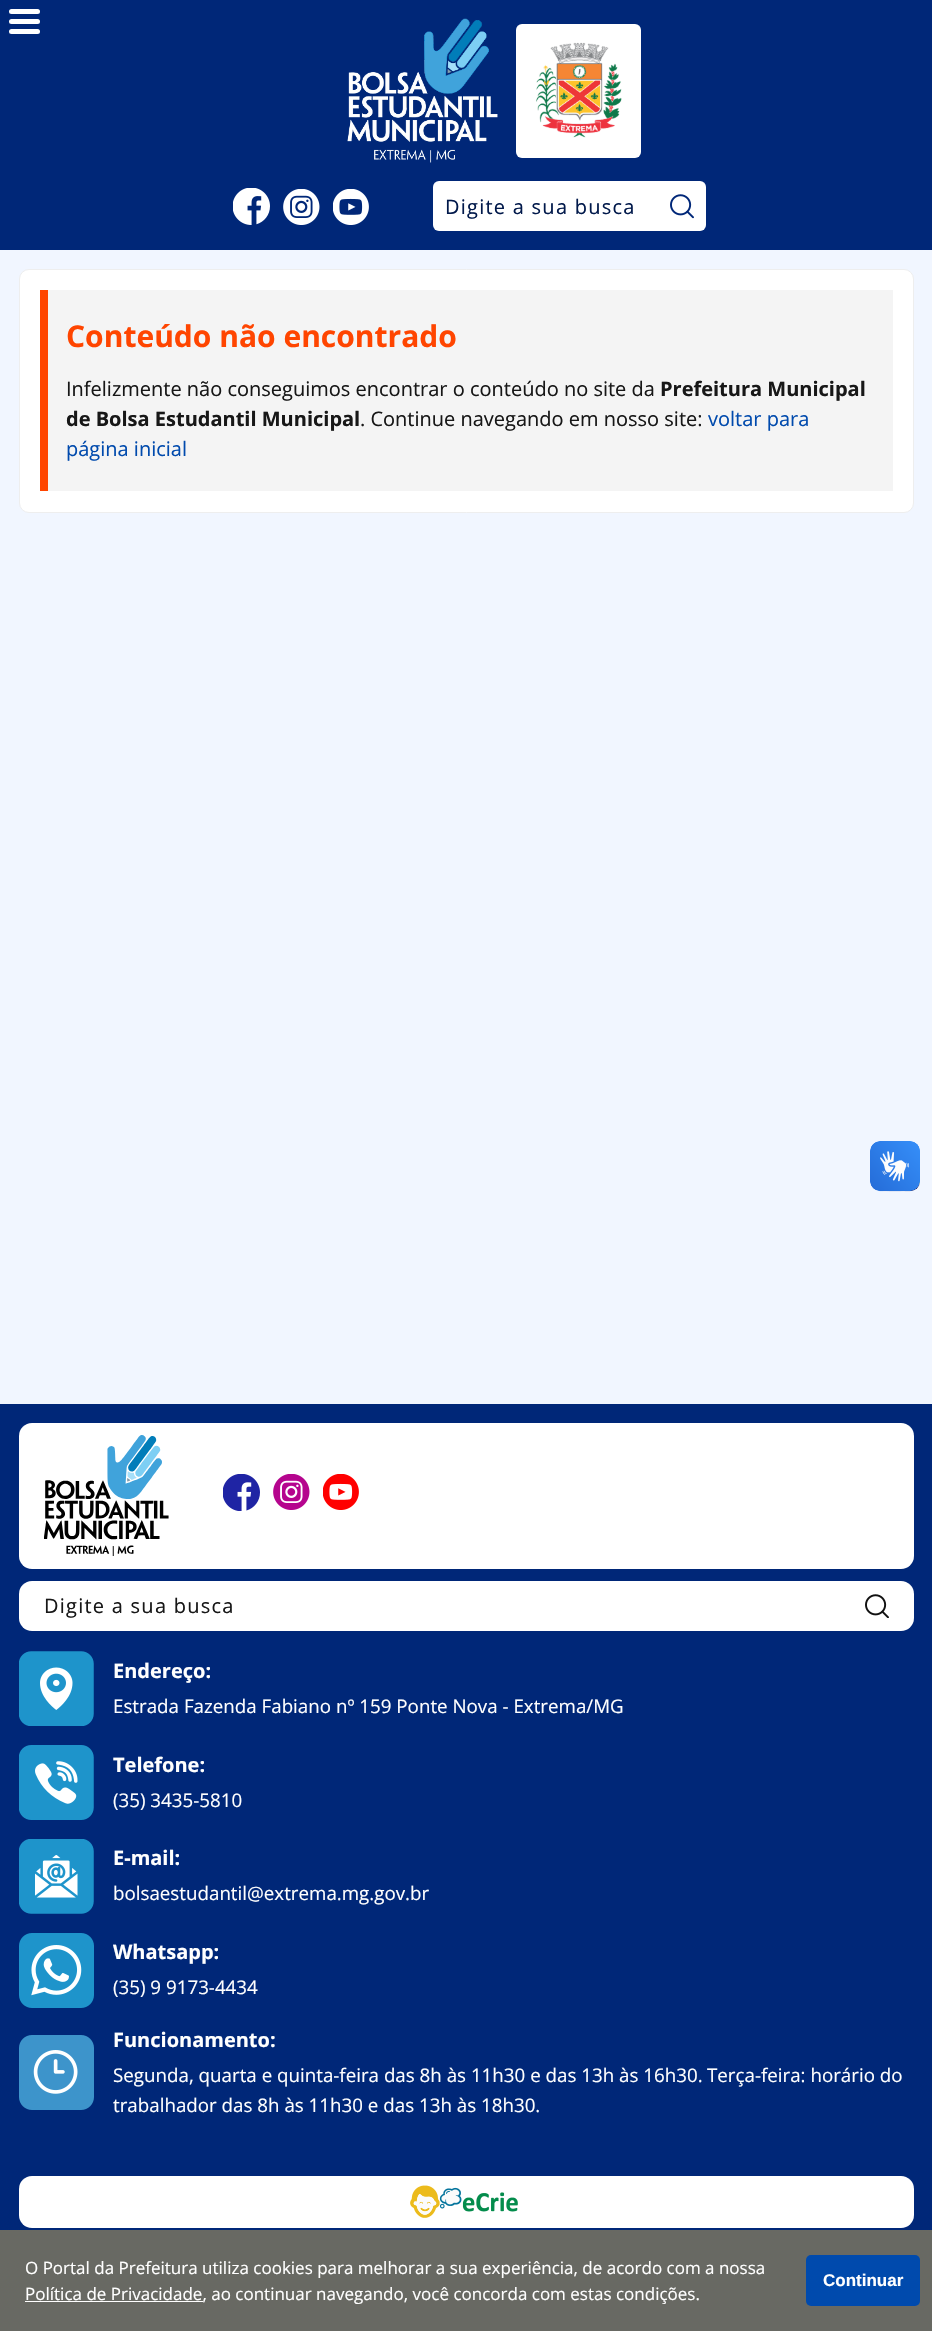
void draw(SkCanvas* c) {
SkPaint p;
p.setAntiAlias(true);
auto F=[&](const char* family, int weight, float size, bool italic = false){SkFontStyle style(weight, SkFontStyle::kNormal_Width,italic ? SkFontStyle::kItalic_Slant : SkFontStyle::kUpright_Slant);SkFont result(fontMgr->matchFamilyStyle(family, style), size);result.setSubpixel(true);return result;};
auto T=[&](const char* s, float x, float y, const SkFont& font){c->drawString(s, x, y, font, p);};
auto L=[&](const char* s, float x, float y, const SkFont& font, const SkPaint& ink, float letter, float word){std::vector<SkGlyphID> glyphs(font.countText(s, strlen(s), SkTextEncoding::kUTF8));std::vector<float> xs(glyphs.size());font.textToGlyphs(s, strlen(s), SkTextEncoding::kUTF8, glyphs);font.getXPos(glyphs, xs, x);float extra = 0;for (size_t i = 0; i < glyphs.size(); i++) {xs[i] += extra;extra += letter + word * (glyphs[i] == font.unicharToGlyph(' '));}c->drawTextBlob(SkTextBlob::MakeFromPosHGlyphs(glyphs, xs, y, font), 0, 0, ink);};
auto R=[&](float x, float y, float w, float h){c->drawRect(SkRect::MakeXYWH(x, y, w, h), p);};
auto Q=[&](float x, float y, float w, float h, float radius){c->drawRoundRect(SkRect::MakeXYWH(x, y, w, h), radius, radius, p);};
auto I=[&](const char* path, float x, float y, float w, float h){auto image = SkImages::DeferredFromEncodedData(SkData::MakeFromFileName(path));c->drawImageRect(image, SkRect::MakeXYWH(x, y, w, h), SkSamplingOptions());};
c->clear(0xfff1f6ff);
p.setColor(0xff002778);
R(0,0,932,250);
p.setColor(0xffffffff);
Q(9,9,31,5,2.5);
Q(9,19,31,5,2.5);
Q(9,29,31,5,2.5);
I("1.png",347,18,151,145);
Q(516,24,125,134,6);
I("2.png",536,42,86,96);
I("3.png",233,188,37,37);
I("4.png",283,189,37,36);
I("5.png",333,189,36,36);
Q(433,181,273,50,6);
auto f1 = F("Open Sans",400,20);
p.setColor(0xff01194b);
L("Digite a sua busca",445,214,f1,p,1.25,0);
I("6.png",670,194,24,25);
p.setColor(0xffffffff);
c->drawRoundRect(SkRect::MakeXYWH(19.5,269.5,894,243),9.5,9.5,p);
p.setStroke(true);
p.setStrokeWidth(1);
p.setColor(0xffeeeeee);
c->drawRoundRect(SkRect::MakeXYWH(19.5,269.5,894,243),9.5,9.5,p);
p.setStroke(false);
p.setColor(0xfff4f4f4);
R(48,290,845,201);
p.setColor(0xffff4500);
R(40,290,8,201);
auto f2 = F("Open Sans",700,30);
T("Conteúdo não encontrado",66,347,f2);
p.setColor(0xff171717);
T("Infelizmente não conseguimos encontrar o conteúdo no site da",66,396,f1);
auto f3 = F("Open Sans",700,20);
T("Prefeitura Municipal",660,396,f3);
T("de Bolsa Estudantil Municipal",66,426,f3);
T(". Continue navegando em nosso site:",360,426,f1);
p.setColor(0xff004aad);
T("voltar para",708,426,f1);
T("página inicial",66,456,f1);
I("7.png",870,1141,50,51);
I("8.png",870,1141,50,50);
p.setColor(0xff002778);
R(0,1404,932,826);
p.setColor(0xffffffff);
Q(19,1423,895,146,13);
I("9.png",44,1435,125,121);
I("10.png",223,1474,37,37);
I("11.png",273,1474,37,36);
I("12.png",323,1474,36,36);
Q(19,1581,895,50,13);
p.setColor(0xff171717);
L("Digite a sua busca",44,1613,f1,p,1.25,0);
I("13.png",865,1594,24,24);
I("14.png",19,1651,75,75);
p.setColor(0xffffffff);
T("Endereço:",113,1678,f3);
auto f4 = F("Open Sans",400,18.75);
T("Estrada Fazenda Fabiano nº 159 Ponte Nova - Extrema/MG",113,1713,f4);
I("15.png",19,1745,75,75);
T("Telefone:",113,1772,f3);
T("(35) 3435-5810",113,1807,f4);
I("16.png",19,1839,75,75);
T("E-mail:",113,1865,f3);
T("bolsaestudantil@extrema.mg.gov.br",113,1900,f4);
I("17.png",19,1933,75,75);
T("Whatsapp:",113,1959,f3);
T("(35) 9 9173-4434",113,1994,f4);
I("18.png",19,2035,75,75);
T("Funcionamento:",113,2047,f3);
T("Segunda, quarta e quinta-feira das 8h às 11h30 e das 13h às 16h30.",113,2082,f4);
T("Terça-feira: horário do",707,2082,f4);
T("trabalhador das 8h às 11h30 e das 13h às 18h30.",113,2112,f4);
Q(19,2176,895,52,13);
I("19.png",410,2185,108,33);
p.setColor(0xff686963);
R(0,2230,932,101);
auto f5 = F("Open Sans",400,17);
p.setColor(0xffffffff);
T("O Portal da Prefeitura utiliza cookies para melhorar a sua experiência, de acordo com a nossa",25,2274,f5);
R(25,2301,178,1);
T("Política de Privacidade, ao continuar navegando, você concorda com estas condições.",25,2300,f5);
p.setColor(0xff004aad);
Q(806,2255,114,51,5);
auto f6 = F("Liberation Sans",700,17);
p.setColor(0xffffffff);
T("Continuar",823,2286,f6);
}
